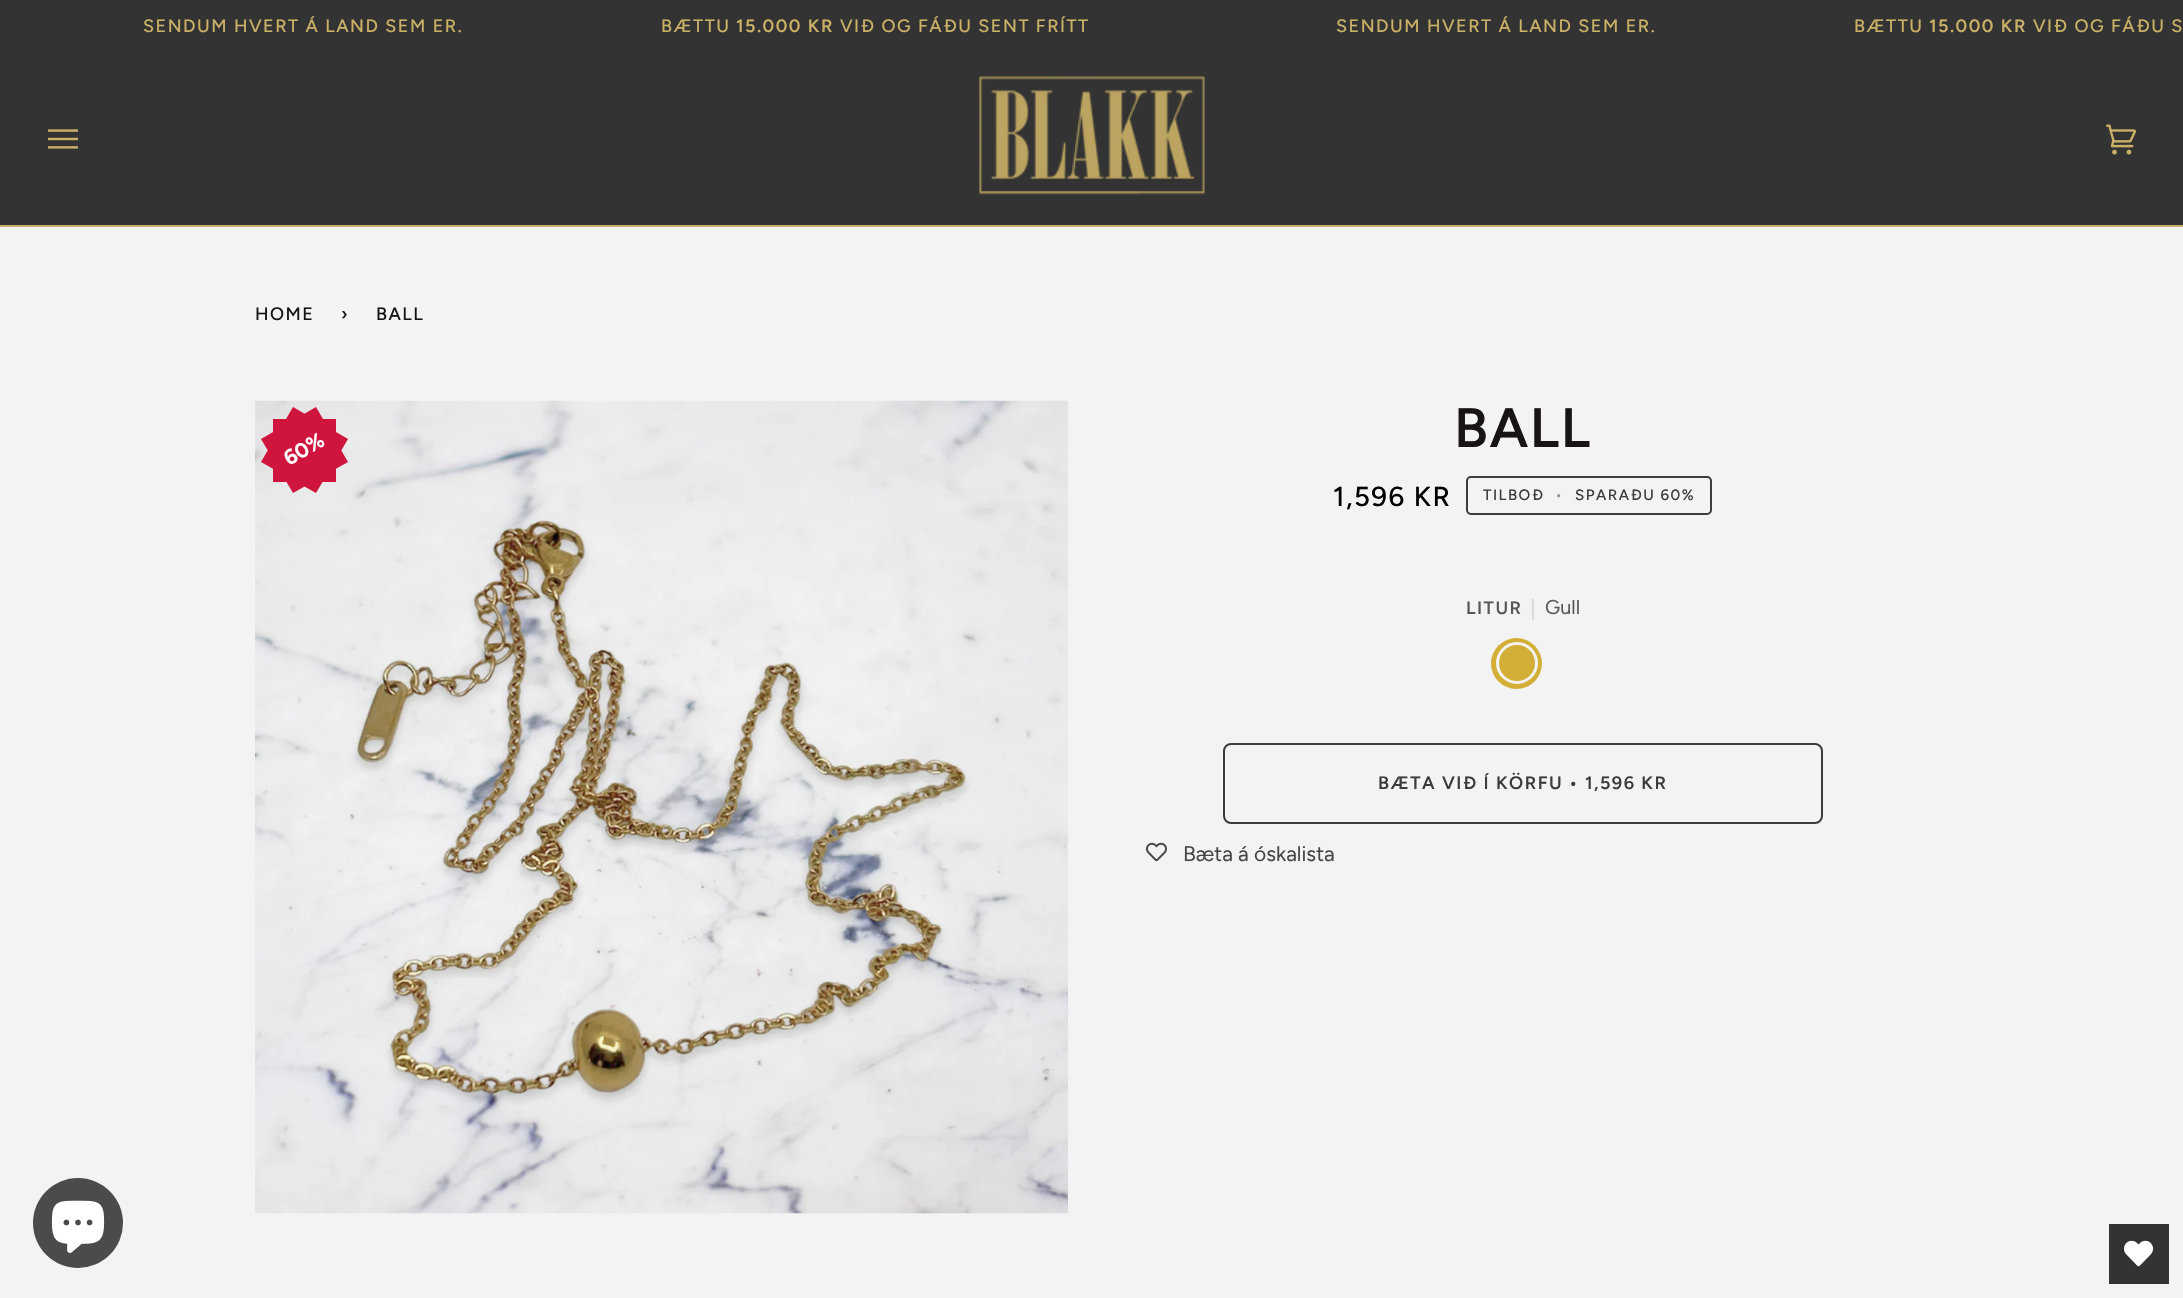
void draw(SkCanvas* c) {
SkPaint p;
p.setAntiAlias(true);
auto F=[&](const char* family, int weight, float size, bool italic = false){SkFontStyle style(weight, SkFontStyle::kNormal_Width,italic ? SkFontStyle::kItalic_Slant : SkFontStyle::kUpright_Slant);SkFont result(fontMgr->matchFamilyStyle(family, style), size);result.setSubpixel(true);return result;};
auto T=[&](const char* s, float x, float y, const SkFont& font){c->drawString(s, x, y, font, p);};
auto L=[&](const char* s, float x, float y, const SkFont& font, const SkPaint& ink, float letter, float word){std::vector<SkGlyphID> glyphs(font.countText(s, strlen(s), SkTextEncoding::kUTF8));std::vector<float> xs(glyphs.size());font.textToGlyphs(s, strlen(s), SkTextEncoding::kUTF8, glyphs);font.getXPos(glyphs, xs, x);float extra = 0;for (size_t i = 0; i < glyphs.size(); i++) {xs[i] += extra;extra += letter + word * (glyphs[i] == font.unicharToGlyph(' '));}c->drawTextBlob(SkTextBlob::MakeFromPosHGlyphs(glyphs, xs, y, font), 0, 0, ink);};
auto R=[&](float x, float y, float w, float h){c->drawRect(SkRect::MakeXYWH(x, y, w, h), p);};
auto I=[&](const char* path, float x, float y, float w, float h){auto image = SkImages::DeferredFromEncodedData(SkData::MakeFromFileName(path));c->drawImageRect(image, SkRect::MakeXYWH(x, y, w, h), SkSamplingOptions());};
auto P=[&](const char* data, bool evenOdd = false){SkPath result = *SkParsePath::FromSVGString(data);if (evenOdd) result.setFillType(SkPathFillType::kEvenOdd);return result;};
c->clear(0xfff3f3f3);
p.setColor(0xff333333);
R(0,0,2183,225);
p.setColor(0xffcab166);
R(0,225,2183,2);
I("1.png",48,129,30,20);
I("2.png",979,76,226,119);
I("3.png",2106,124,30,31);
auto f1 = F("Figtree",500,18);
L("SENDUM HVERT Á LAND SEM ER.",143,32,f1,p,1.5,0);
L("BÆTTU",661,32,f1,p,1.5,0);
auto f2 = F("Figtree",600,18);
L("15.000 KR",736,32,f2,p,1.5,0);
L("VIÐ OG FÁÐU SENT FRÍTT",840,32,f1,p,1.5,0);
L("SENDUM HVERT Á LAND SEM ER.",1336,32,f1,p,1.5,0);
L("BÆTTU",1854,32,f1,p,1.5,0);
L("15.000 KR",1929,32,f2,p,1.5,0);
L("VIÐ OG FÁÐU S",2033,32,f1,p,1.5,0);
p.setColor(0xff181414);
L("HOME",255,320,f1,p,1.5,0);
L("›",341,320,f1,p,1.5,0);
L("BALL",376,320,f1,p,1.5,0);
I("4.png",255,400,813,814);
p.setColor(0xffcf143e);
c->drawPath(P("M261 439l55-32l32 55l-55 31z"),p);
R(273,419,63,63);
c->drawPath(P("M261 462l32-55l55 32l-32 54z"),p);
auto f3 = F("Figtree",700,21);
p.setColor(0xffffffff);
c->save();
c->rotate(-30,289,466);
T("60%",289,466,f3);
c->restore();
auto f4 = F("Figtree",600,55.5);
p.setColor(0xff181414);
L("BALL",1454,447,f4,p,1.5,0);
auto f5 = F("Figtree",500,27.5);
p.setColor(0xff000000);
L("1,596 KR",1333,506,f5,p,1.5,0);
p.setStroke(true);
p.setStrokeWidth(2);
p.setColor(0xff3c3c3c);
c->drawRoundRect(SkRect::MakeXYWH(1467,477,244,37),4,4,p);
auto f6 = F("Figtree",500,15);
p.setStroke(false);
L("TILBOÐ",1483,500,f6,p,1.5,0);
p.setColor(0xff989898);
L("•",1555,500,f6,p,1.5,0);
p.setColor(0xff3c3c3c);
L("SPARAÐU 60%",1575,500,f6,p,1.5,0);
p.setColor(0xff5a5757);
L("LITUR",1466,614,f2,p,1.5,0);
p.setColor(0xffd9d9d9);
R(1532,599,2,21);
auto f7 = F("Figtree",400,20);
p.setColor(0xff5a5757);
T("Gull",1545,614,f7);
p.setColor(0xffd4af37);
c->drawCircle(1516.5,663.5,25.5,p);
p.setStroke(true);
p.setStrokeWidth(3);
p.setColor(0xfff3f3f3);
c->drawCircle(1517,663,19.5,p);
p.setStrokeWidth(2);
p.setColor(0xff3c3c3c);
c->drawRoundRect(SkRect::MakeXYWH(1224,744,598,79),7,7,p);
p.setStroke(false);
L("BÆTA VIÐ Í KÖRFU • 1,596 KR",1378,789,f2,p,1.5,0);
I("5.png",1146,842,21,20);
auto f8 = F("Figtree",400,21);
p.setColor(0xff464646);
T("Bæta á óskalista",1183,861,f8);
p.setColor(0xff4b4b4b);
c->drawCircle(78,1223,45,p);
I("6.png",51,1200,54,53);
p.setColor(0xff333333);
R(2109,1224,60,60);
I("7.png",2124,1240,29,27);
}
